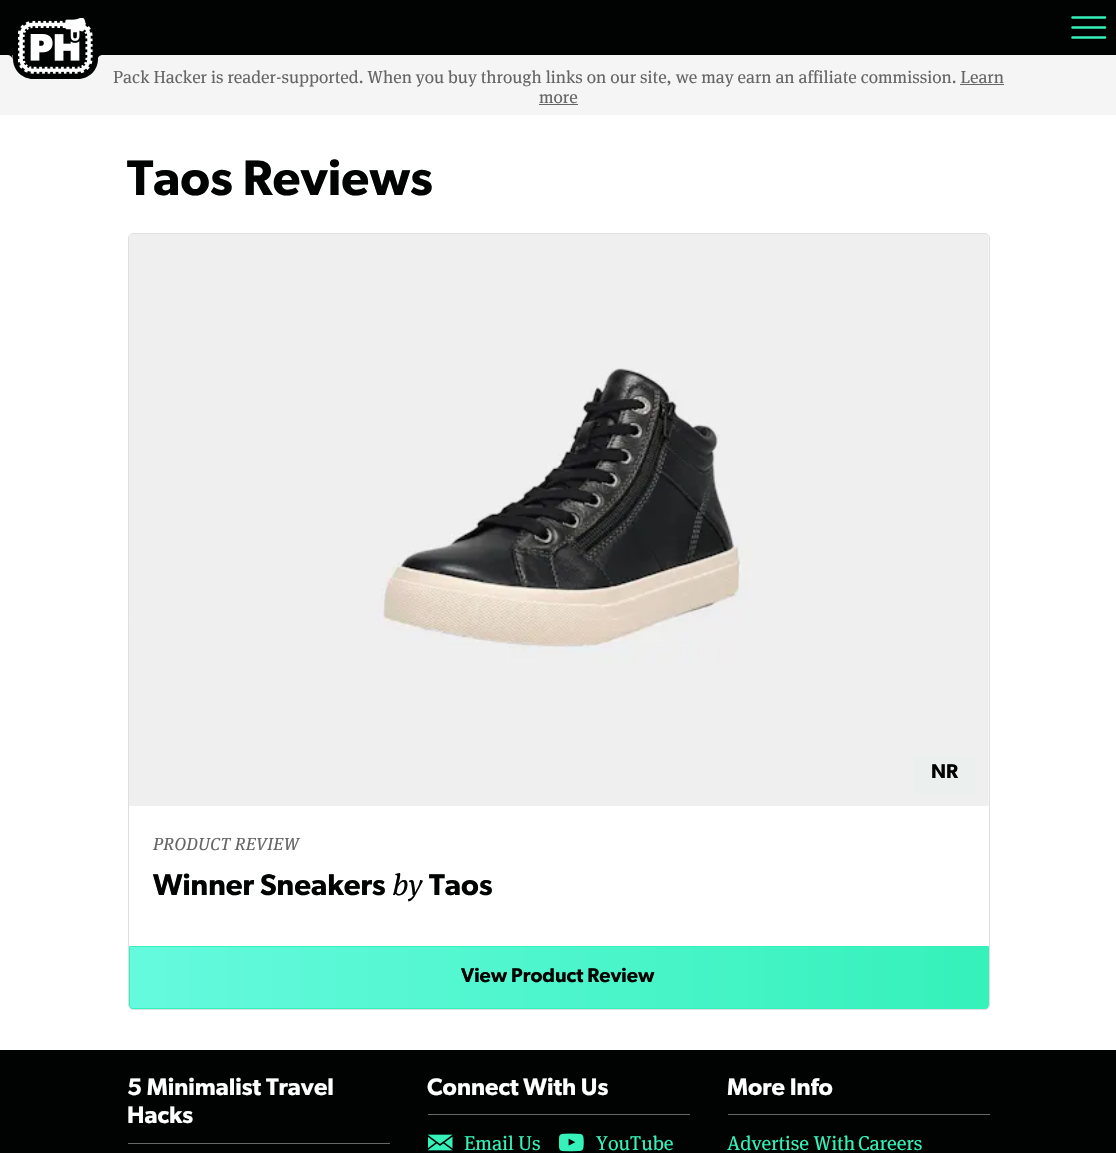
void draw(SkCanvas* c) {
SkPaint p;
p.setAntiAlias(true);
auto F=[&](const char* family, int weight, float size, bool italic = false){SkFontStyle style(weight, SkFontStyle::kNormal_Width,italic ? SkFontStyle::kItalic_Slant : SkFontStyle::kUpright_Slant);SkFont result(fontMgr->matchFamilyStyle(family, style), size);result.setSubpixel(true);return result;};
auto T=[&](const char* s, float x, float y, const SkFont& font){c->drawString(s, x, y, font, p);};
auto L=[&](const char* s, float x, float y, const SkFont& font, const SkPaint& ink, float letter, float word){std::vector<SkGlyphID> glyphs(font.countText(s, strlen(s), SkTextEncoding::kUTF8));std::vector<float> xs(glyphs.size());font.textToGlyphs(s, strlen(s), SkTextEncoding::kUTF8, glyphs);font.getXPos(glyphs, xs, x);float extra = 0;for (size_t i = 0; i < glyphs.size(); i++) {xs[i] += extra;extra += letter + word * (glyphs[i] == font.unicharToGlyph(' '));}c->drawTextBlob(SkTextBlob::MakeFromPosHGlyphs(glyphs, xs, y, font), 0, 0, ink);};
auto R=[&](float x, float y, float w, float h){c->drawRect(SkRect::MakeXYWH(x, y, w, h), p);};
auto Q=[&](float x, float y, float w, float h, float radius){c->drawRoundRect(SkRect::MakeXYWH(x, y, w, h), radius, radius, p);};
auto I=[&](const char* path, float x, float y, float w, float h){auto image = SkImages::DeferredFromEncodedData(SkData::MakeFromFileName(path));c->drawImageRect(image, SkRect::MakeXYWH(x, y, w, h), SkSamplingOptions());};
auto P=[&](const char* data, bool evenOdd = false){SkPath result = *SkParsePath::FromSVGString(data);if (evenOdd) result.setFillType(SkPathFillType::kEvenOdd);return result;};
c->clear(0xffffffff);
p.setColor(0xff010202);
R(0,0,1116,55);
p.setColor(0xfff5f5f5);
R(0,55,1116,60);
p.setColor(0xff010202);
c->drawPath(P("M13 18h85v41c0 11-9 20-20 20h-45c-11 0-20-9-20-20z"),p);
I("1.png",8,55,5,5);
I("2.png",18,18,75,56);
I("3.png",98,55,4,3);
I("4.png",1071,16,36,23);
auto f1 = F("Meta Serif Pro",400,17.5);
p.setColor(0xff666666);
T("Pack Hacker is reader-supported. When you buy through links on our site, we may earn an affiliate commission. Learn",113,83,f1);
R(960,84,44,1);
T("more",539,103,f1);
R(539,104,39,1);
auto f2 = F("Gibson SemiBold",600,50);
p.setColor(0xff010202);
T("Taos Reviews",127,195,f2);
p.setStroke(true);
p.setStrokeWidth(1);
p.setColor(0xffdfdfdf);
c->drawRoundRect(SkRect::MakeXYWH(128.5,233.5,861,776),4.5,4.5,p);
I("5.png",129,234,860,572);
p.setStroke(false);
p.setColor(0xffebefee);
Q(914,755,62,39,4);
auto f3 = F("Gibson SemiBold",600,20);
p.setColor(0xff010202);
T("NR",931,778,f3);
auto f4 = F("Meta Serif Pro",400,17.5,true);
p.setColor(0xff666666);
L("PRODUCT REVIEW",153,850,f4,p,.25,0);
auto f5 = F("Gibson SemiBold",600,30);
p.setColor(0xff010202);
T("Winner Sneakers",153,895,f5);
auto f6 = F("Meta Serif Pro",400,30,true);
T("by",392,895,f6);
T("Taos",429,895,f5);
c->save();
c->clipPath(P("M129 946h860v59c0 2-2 4-4 4h-852c-2 0-4-2-4-4z"),true);
{
const SkColor colors[] = {0xff65fade,0xff35f1ba};
const float stops[] = {0,1};
const SkPoint ends[] = {{130,978}, {988,978}};
p.setShader(SkGradientShader::MakeLinear(ends, colors, stops, 2, SkTileMode::kClamp));
p.setAlpha(255);
}
R(130,947,858,62);
c->restore();
p.setStroke(true);
p.setShader(nullptr);
p.setColor(0xff35f1ba);
c->drawPath(P("M129.5 946.5h859v58.5c0 2-1.5 3.5-3.5 3.5h-852c-2 0-3.5-1.5-3.5-3.5z"),p);
p.setStroke(false);
p.setColor(0xff010202);
T("View Product Review",461,982,f3);
R(0,1050,1116,103);
p.setColor(0xff676767);
R(128,1143,262,1);
auto f7 = F("Gibson SemiBold",600,24);
p.setColor(0xffffffff);
T("5 Minimalist Travel",127,1095,f7);
T("Hacks",127,1123,f7);
p.setColor(0xff676767);
R(428,1114,262,1);
p.setColor(0xffffffff);
T("Connect With Us",427,1095,f7);
I("6.png",428,1134,25,17);
auto f8 = F("Meta Serif Pro",400,20);
p.setColor(0xff35f1ba);
T("Email Us",464,1150,f8);
I("7.png",559,1133,25,19);
T("YouTube",596,1150,f8);
p.setColor(0xff676767);
R(728,1114,262,1);
p.setColor(0xffffffff);
T("More Info",727,1095,f7);
p.setColor(0xff35f1ba);
T("Advertise With",727,1150,f8);
T("Careers",858,1150,f8);
}
